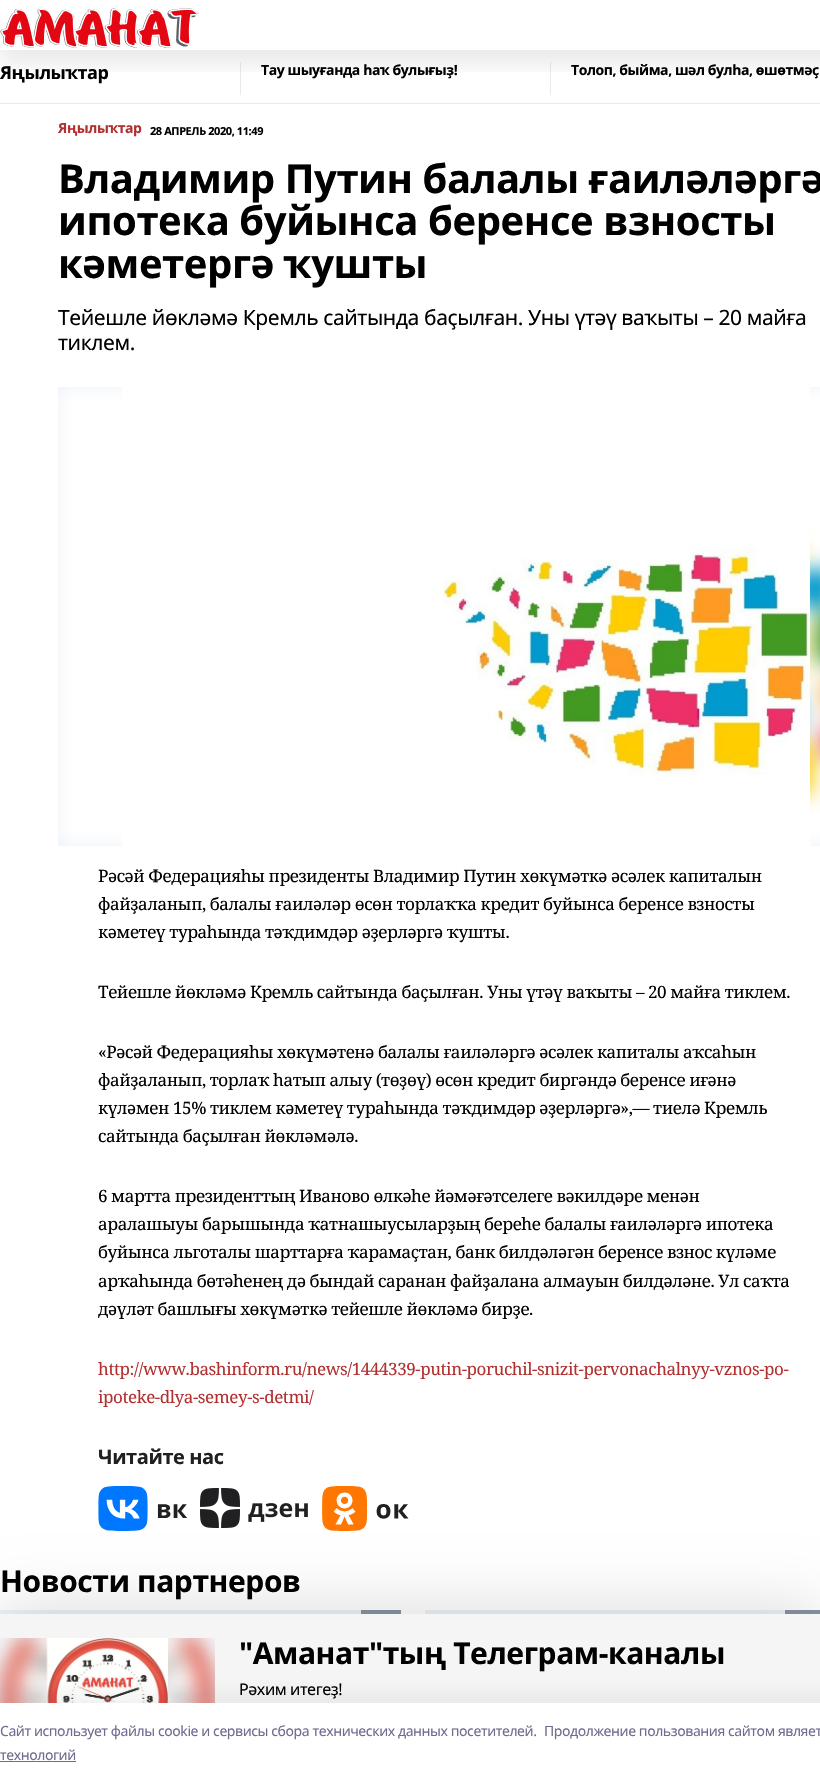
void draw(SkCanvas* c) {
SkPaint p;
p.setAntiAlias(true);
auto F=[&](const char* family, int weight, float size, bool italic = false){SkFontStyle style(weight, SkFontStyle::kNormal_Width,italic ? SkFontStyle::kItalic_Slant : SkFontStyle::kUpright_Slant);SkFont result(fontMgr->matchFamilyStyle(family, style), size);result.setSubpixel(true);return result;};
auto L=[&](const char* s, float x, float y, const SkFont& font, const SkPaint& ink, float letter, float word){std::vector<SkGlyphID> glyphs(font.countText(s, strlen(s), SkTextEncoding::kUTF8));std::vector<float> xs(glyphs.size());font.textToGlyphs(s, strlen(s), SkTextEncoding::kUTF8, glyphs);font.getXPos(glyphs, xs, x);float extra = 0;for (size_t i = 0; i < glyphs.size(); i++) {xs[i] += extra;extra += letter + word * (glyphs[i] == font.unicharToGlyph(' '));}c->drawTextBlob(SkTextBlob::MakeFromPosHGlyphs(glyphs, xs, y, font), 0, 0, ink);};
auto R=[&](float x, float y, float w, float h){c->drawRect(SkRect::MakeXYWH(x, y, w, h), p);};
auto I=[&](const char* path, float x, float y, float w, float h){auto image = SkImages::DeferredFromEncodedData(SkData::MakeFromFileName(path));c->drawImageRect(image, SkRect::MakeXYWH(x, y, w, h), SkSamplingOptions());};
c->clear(0xffffffff);
p.setColor(0xffeaeaea);
R(240,62,1,33);
R(550,62,1,33);
c->save();
c->clipRect(SkRect::MakeXYWH(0,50,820,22));
p.setColor(0x14000000);
p.setMaskFilter(SkMaskFilter::MakeBlur(kNormal_SkBlurStyle, 10));
c->drawRect(SkRect::MakeXYWH(0,15,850,50),p);
p.setMaskFilter(nullptr);
c->restore();
I("1.png",0,8,199,40);
p.setColor(0xffeaeaea);
R(0,103,820,1);
auto f1 = F("Noto Sans",700,18);
p.setColor(0xff000000);
L("Яңылыҡтар",0,79,f1,p,-.42,0);
auto f2 = F("Noto Sans",700,14);
L("Тау шыуғанда һаҡ булығыҙ!",261,75,f2,p,-.42,0);
L("Толоп, быйма, шәл булһа, өшөтмәҫ",571,75,f2,p,-.42,0);
p.setColor(0xffb23030);
L("Яңылыҡтар",58,133,f2,p,-.42,0);
auto f3 = F("Noto Sans",700,11);
p.setColor(0xff000000);
L("28 АПРЕЛЬ 2020, 11:49",150,135,f3,p,-.42,0);
auto f4 = F("Noto Sans",700,40);
L("Владимир Путин балалы ғаиләләргә",58,193,f4,p,-.42,0);
L("ипотека буйынса беренсе взносты",58,235,f4,p,-.42,0);
L("кәметергә ҡушты",58,278,f4,p,-.42,0);
auto f5 = F("Noto Sans",400,21);
L("Тейешле йөкләмә Кремль сайтында баҫылған. Уны үтәү ваҡыты – 20 майға",58,325,f5,p,-.42,0);
L("тиклем.",58,350,f5,p,-.42,0);
p.setColor(0xffedf2f7);
R(58,387,762,459);
I("2.png",58,387,762,459);
I("3.png",122,387,688,459);
auto f6 = F("Noto Serif",400,17);
p.setColor(0xff000000);
L("Рәсәй Федерацияһы президенты Владимир Путин хөкүмәткә әсәлек капиталын",98,882,f6,p,-.42,0);
L("файҙаланып, балалы ғаиләләр өсөн торлаҡҡа кредит буйынса беренсе взносты",98,910,f6,p,-.42,0);
L("кәметеү тураһында тәҡдимдәр әҙерләргә ҡушты.",98,938,f6,p,-.42,0);
L("Тейешле йөкләмә Кремль сайтында баҫылған. Уны үтәү ваҡыты – 20 майға тиклем.",98,998,f6,p,-.42,0);
L("«Рәсәй Федерацияһы хөкүмәтенә балалы ғаиләләргә әсәлек капиталы аҡсаһын",98,1058,f6,p,-.42,0);
L("файҙаланып, торлаҡ һатып алыу (төҙөү) өсөн кредит биргәндә беренсе иғәнә",98,1086,f6,p,-.42,0);
L("күләмен 15% тиклем кәметеү тураһында тәҡдимдәр әҙерләргә»,— тиелә Кремль",98,1114,f6,p,-.42,0);
L("сайтында баҫылған йөкләмәлә.",98,1142,f6,p,-.42,0);
L("6 мартта президенттың Иваново өлкәһе йәмәғәтселеге вәкилдәре менән",98,1202,f6,p,-.42,0);
L("аралашыуы барышында ҡатнашыусыларҙың береһе балалы ғаиләләргә ипотека",98,1230,f6,p,-.42,0);
L("буйынса льготалы шарттарға ҡарамаҫтан, банк билдәләгән беренсе взнос күләме",98,1258,f6,p,-.42,0);
L("арҡаһында бөтәһенең дә бындай саранан файҙалана алмауын билдәләне. Ул саҡта",98,1287,f6,p,-.42,0);
L("дәүләт башлығы хөкүмәткә тейешле йөкләмә бирҙе.",98,1315,f6,p,-.42,0);
p.setColor(0xffb23030);
L("http://www.bashinform.ru/news/1444339-putin-poruchil-snizit-pervonachalnyy-vznos-po-",98,1375,f6,p,-.42,0);
L("ipoteke-dlya-semey-s-detmi/",98,1403,f6,p,-.42,0);
auto f7 = F("Noto Sans",700,20);
p.setColor(0xff202022);
L("Читайте нас",98,1464,f7,p,-.42,0);
I("4.png",98,1486,89,45);
I("5.png",200,1488,108,40);
I("6.png",322,1486,87,45);
auto f8 = F("Noto Sans",700,30);
p.setColor(0xff000000);
L("Новости партнеров",0,1592,f8,p,-.42,0);
p.setColor(0xff8894a2);
R(361,1610,40,4);
p.setColor(0xffedf2f7);
R(0,1610,361,4);
p.setColor(0xff8894a2);
R(785,1610,35,4);
p.setColor(0xffedf2f7);
R(425,1610,360,4);
p.setColor(0x1f000000);
p.setMaskFilter(SkMaskFilter::MakeBlur(kNormal_SkBlurStyle, 30));
c->drawRect(SkRect::MakeXYWH(0,1604,820,169),p);
p.setMaskFilter(nullptr);
p.setColor(0xfff5f5f5);
R(0,1614,820,89);
p.setColor(0xffedf2f7);
R(0,1638,215,65);
I("7.png",0,1638,215,65);
I("8.png",46,1638,122,65);
p.setColor(0xff000000);
L("\"Аманат\"тың Телеграм-каналы",239,1664,f8,p,-.42,0);
auto f9 = F("Noto Sans",400,16);
L("Рәхим итегеҙ!",239,1695,f9,p,-.42,0);
p.setColor(0x1414142b);
p.setMaskFilter(SkMaskFilter::MakeBlur(kNormal_SkBlurStyle, 11.5));
c->drawRect(SkRect::MakeXYWH(0,1697,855,80),p);
p.setMaskFilter(nullptr);
p.setColor(0xffffffff);
R(0,1703,820,80);
auto f10 = F("Noto Sans",400,14);
p.setColor(0xff6f6c90);
L("Cайт использует файлы cookie и сервисы сбора технических данных посетителей.",0,1736,f10,p,-.42,0);
L("Продолжение пользования сайтом являет",544,1736,f10,p,-.42,0);
L("технологий",0,1760,f10,p,-.42,0);
R(0,1761,76,1);
}
